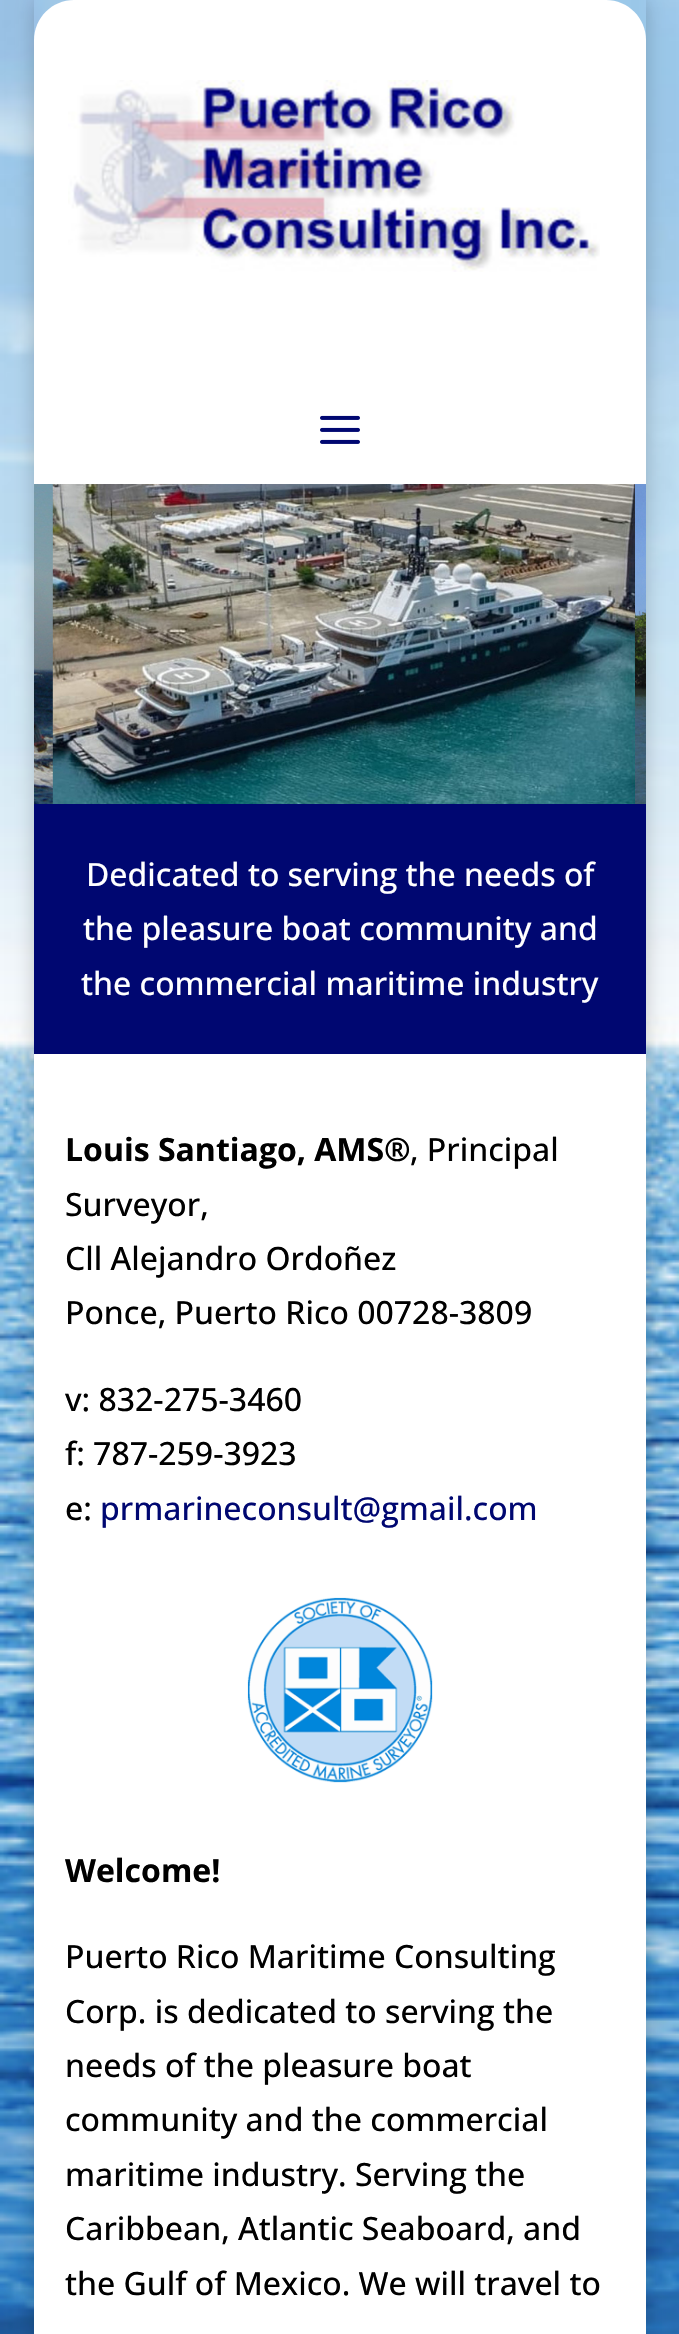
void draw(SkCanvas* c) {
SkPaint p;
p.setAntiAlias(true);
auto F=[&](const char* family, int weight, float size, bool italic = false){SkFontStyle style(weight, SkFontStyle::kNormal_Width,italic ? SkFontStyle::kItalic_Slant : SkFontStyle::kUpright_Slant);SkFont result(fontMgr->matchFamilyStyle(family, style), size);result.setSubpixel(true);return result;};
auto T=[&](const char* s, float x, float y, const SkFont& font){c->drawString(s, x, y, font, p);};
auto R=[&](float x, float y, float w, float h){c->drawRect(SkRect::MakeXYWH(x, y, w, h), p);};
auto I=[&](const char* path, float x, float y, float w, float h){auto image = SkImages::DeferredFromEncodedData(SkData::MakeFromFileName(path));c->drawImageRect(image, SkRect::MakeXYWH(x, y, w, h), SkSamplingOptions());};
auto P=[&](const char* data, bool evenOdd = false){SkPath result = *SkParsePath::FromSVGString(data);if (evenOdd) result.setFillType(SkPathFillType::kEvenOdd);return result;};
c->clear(0xffffffff);
I("1.png",0,0,679,2334);
c->save();
c->clipPath(P("M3 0h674v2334h-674zm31 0h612v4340h-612z",true),true);
p.setColor(0x33000000);
p.setMaskFilter(SkMaskFilter::MakeBlur(kNormal_SkBlurStyle, 10));
c->drawRect(SkRect::MakeXYWH(34,0,612,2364),p);
p.setMaskFilter(nullptr);
c->restore();
p.setColor(0xffffffff);
c->drawPath(P("M74 0h532c22 0 40 18 40 40v332h-612v-332c0-22 18-40 40-40z"),p);
I("2.png",68,80,532,192);
R(34,372,612,112);
I("3.png",320,415,40,29);
I("4.png",34,484,612,320);
p.setColor(0xff000771);
R(34,804,612,250);
auto f1 = F("Open Sans",500,32);
p.setColor(0xffffffff);
T("Dedicated to serving the needs of",86,886,f1);
T("the pleasure boat community and",83,940,f1);
T("the commercial maritime industry",81,995,f1);
R(34,1054,612,1280);
auto f2 = F("Open Sans",700,32);
p.setColor(0xff000000);
T("Louis Santiago, AMS®",65,1161,f2);
T(", Principal",410,1161,f1);
T("Surveyor,",65,1216,f1);
T("Cll Alejandro Ordoñez",65,1270,f1);
T("Ponce, Puerto Rico 00728-3809",65,1324,f1);
T("v: 832-275-3460",65,1411,f1);
T("f: 787-259-3923",65,1465,f1);
T("e:",65,1520,f1);
p.setColor(0xff000771);
T("prmarineconsult@gmail.com",100,1520,f1);
I("5.png",247,1597,186,186);
p.setColor(0xff000000);
T("Welcome!",65,1882,f2);
T("Puerto Rico Maritime Consulting",65,1968,f1);
T("Corp. is dedicated to serving the",65,2023,f1);
T("needs of the pleasure boat",65,2077,f1);
T("community and the commercial",65,2131,f1);
T("maritime industry. Serving the",65,2186,f1);
T("Caribbean, Atlantic Seaboard, and",65,2240,f1);
T("the Gulf of Mexico. We will travel to",65,2295,f1);
}
